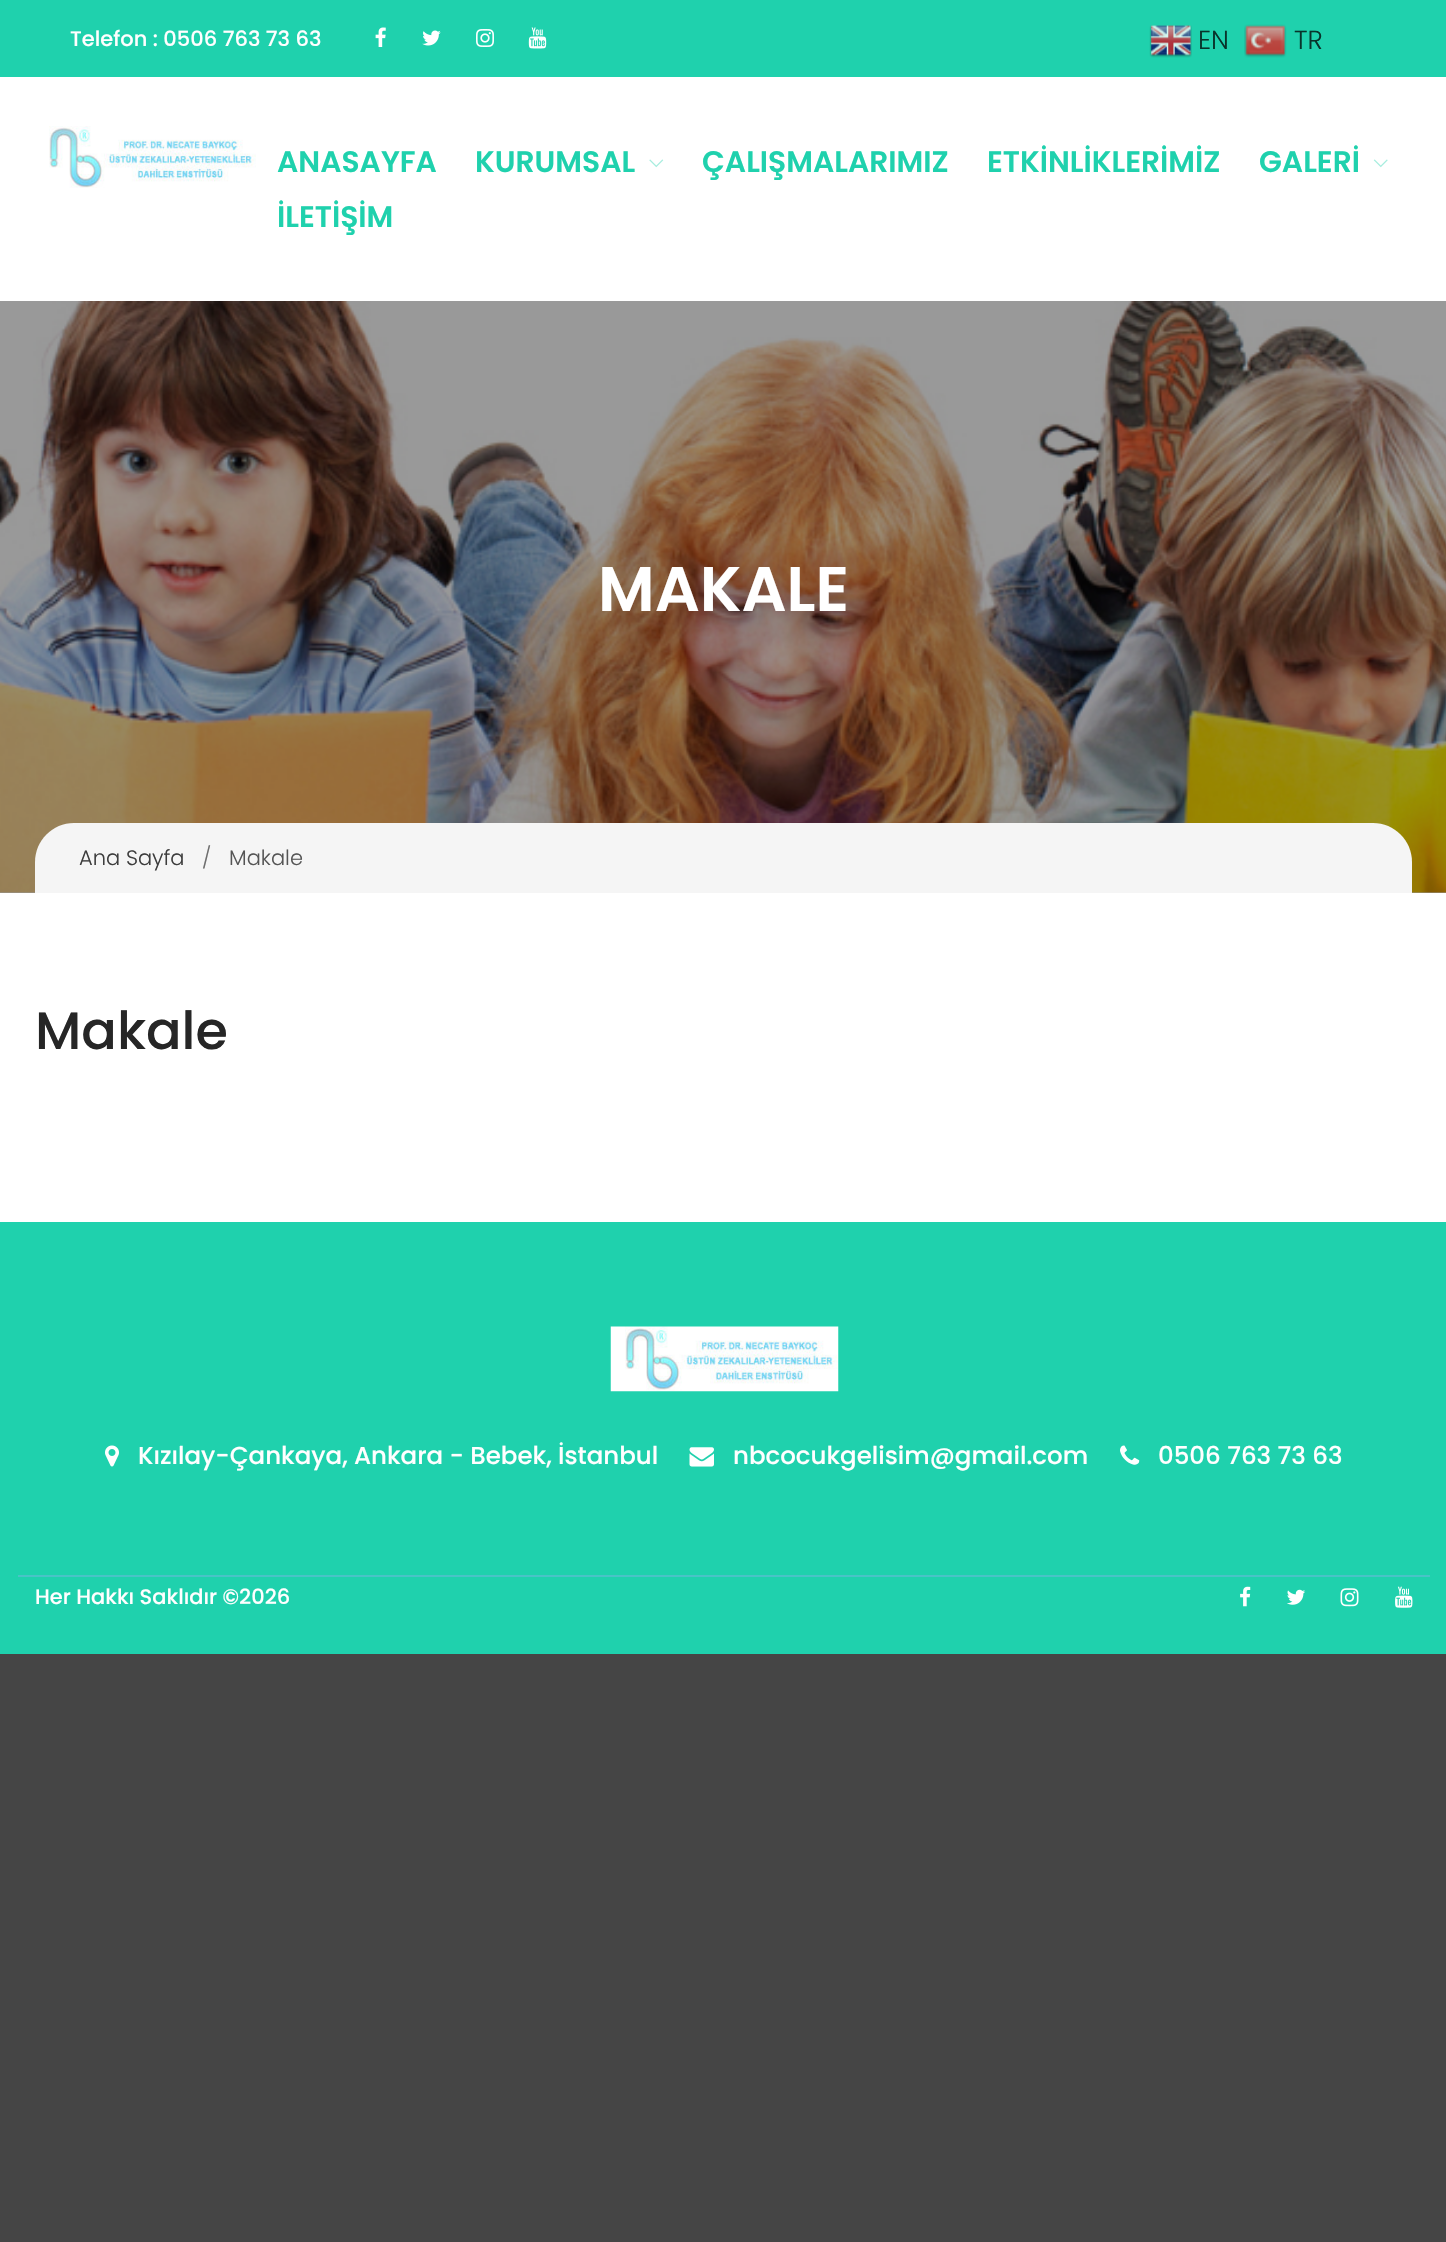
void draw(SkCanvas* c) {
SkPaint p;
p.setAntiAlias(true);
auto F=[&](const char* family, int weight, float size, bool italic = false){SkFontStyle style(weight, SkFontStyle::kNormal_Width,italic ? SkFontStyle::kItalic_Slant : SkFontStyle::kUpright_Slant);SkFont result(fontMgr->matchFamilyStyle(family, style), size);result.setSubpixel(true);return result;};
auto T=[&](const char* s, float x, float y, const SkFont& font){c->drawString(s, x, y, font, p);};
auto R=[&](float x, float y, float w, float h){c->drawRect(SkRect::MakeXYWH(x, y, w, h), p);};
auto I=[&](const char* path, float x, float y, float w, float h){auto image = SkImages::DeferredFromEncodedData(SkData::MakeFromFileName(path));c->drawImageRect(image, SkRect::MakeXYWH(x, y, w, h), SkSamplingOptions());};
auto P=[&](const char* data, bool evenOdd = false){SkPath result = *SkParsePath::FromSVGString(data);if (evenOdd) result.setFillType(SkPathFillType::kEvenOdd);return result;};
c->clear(0xff454545);
p.setColor(0xffffffff);
R(0,77,1446,1145);
p.setColor(0xff999999);
R(0,892,1446,1);
p.setColor(0xff1fd1ad);
R(0,0,1446,77);
auto f1 = F("Poppins",500,21);
p.setColor(0xffffffff);
T("Telefon : 0506 763 73 63",70,46,f1);
I("1.png",375,27,11,20);
I("2.png",422,30,19,16);
I("3.png",476,29,18,18);
I("4.png",528,27,19,22);
I("5.png",49,126,207,62);
auto f2 = F("Poppins",600,29.75);
p.setColor(0xff1fd1ad);
T("ANASAYFA",277,172,f2);
T("KURUMSAL",475,172,f2);
I("6.png",649,159,15,9);
T("ÇALIŞMALARIMIZ",702,172,f2);
T("ETKİNLİKLERİMİZ",987,172,f2);
T("GALERİ",1259,172,f2);
I("7.png",1373,159,15,9);
T("İLETİŞİM",277,227,f2);
I("8.png",0,301,1446,592);
auto f3 = F("Poppins",600,63);
p.setColor(0xffffffff);
T("MAKALE",598,611,f3);
p.setColor(0xfff5f5f5);
c->drawPath(P("M74 823h1299c21.5 0 39 17.5 39 39v31h-1377v-31c0-21.5 17.5-39 39-39z"),p);
auto f4 = F("Poppins",300,21);
p.setColor(0xff3d3d3d);
T("Ana Sayfa",79,865,f4);
p.setColor(0xff6e6e6e);
T("/",202,865,f4);
p.setColor(0xff555555);
T("Makale",229,865,f4);
auto f5 = F("Poppins",500,52.5);
p.setColor(0xff262626);
T("Makale",35,1049,f5);
p.setColor(0xff1fd1ad);
R(0,1222,1446,432);
p.setColor(0xff49c3c7);
R(18,1575,1412,2);
I("9.png",610,1326,229,66);
I("10.png",105,1445,14,22);
auto f6 = F("Poppins",500,24.5);
p.setColor(0xffffffff);
T("Kızılay-Çankaya, Ankara - Bebek, İstanbul",138,1464,f6);
I("11.png",689,1447,25,20);
T("nbcocukgelisim@gmail.com",733,1464,f6);
I("12.png",1120,1445,20,20);
T("0506 763 73 63",1158,1464,f6);
T("Her Hakkı Saklıdır ©2026",35,1604,f1);
I("13.png",1240,1586,11,21);
I("14.png",1287,1589,19,16);
I("15.png",1340,1588,19,19);
I("16.png",1395,1586,18,22);
I("17.png",1149,25,43,33);
auto f7 = F("Poppins",300,26);
p.setColor(0xff08342b);
T("EN",1198,49,f7);
I("18.png",1244,24,43,34);
T("TR",1294,49,f7);
}
